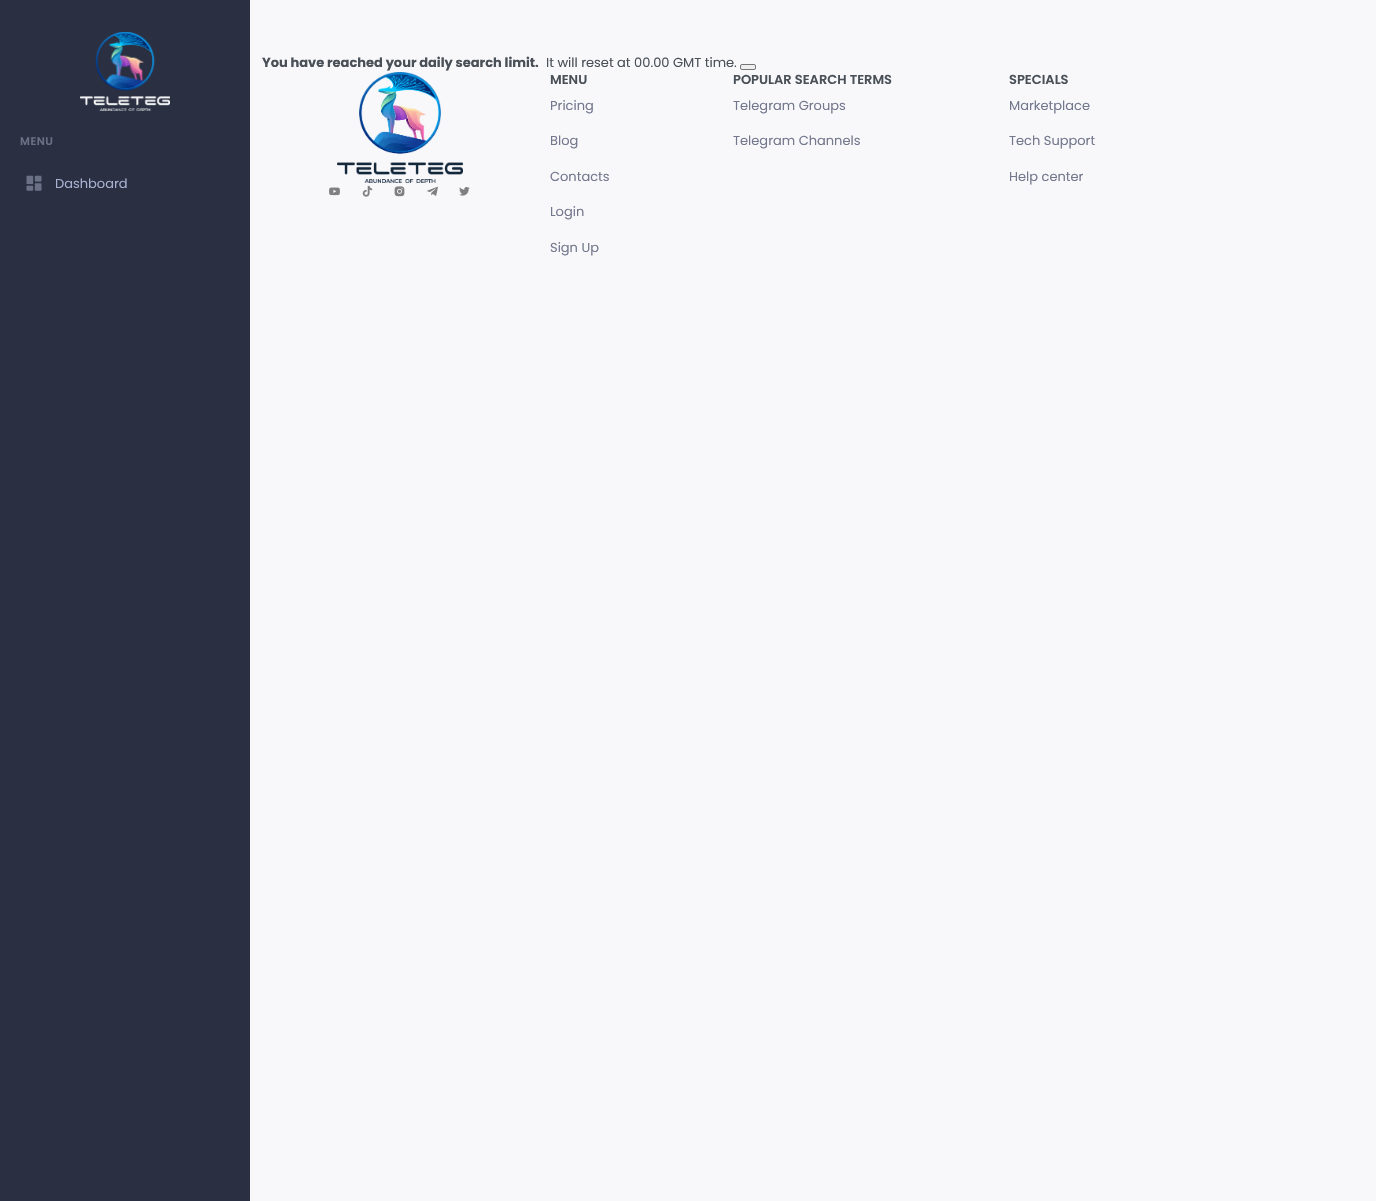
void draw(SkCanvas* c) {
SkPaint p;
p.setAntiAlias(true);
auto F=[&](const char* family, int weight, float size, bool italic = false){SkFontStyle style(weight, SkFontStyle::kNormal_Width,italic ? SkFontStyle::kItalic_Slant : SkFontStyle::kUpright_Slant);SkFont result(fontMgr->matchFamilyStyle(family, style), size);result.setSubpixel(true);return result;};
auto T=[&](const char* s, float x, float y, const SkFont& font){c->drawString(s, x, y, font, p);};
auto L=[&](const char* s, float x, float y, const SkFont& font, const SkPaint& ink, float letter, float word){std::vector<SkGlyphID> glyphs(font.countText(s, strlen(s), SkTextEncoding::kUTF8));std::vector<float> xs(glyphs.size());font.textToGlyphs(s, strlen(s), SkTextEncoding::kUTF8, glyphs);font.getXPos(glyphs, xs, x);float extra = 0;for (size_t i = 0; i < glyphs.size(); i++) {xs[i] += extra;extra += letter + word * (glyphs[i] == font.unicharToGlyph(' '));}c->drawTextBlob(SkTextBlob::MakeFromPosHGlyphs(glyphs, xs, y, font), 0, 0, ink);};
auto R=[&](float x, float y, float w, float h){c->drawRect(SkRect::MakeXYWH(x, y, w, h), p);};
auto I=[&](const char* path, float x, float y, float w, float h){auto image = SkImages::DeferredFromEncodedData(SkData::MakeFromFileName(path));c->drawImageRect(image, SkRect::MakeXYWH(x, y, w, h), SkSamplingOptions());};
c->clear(0xfff8f8fb);
p.setColor(0xff2a3042);
R(0,0,250,1201);
I("1.png",80,32,90,79);
auto f1 = F("Poppins",600,11);
p.setColor(0xff6a7187);
L("MENU",20,145,f1,p,.5,0);
I("2.png",26,175,16,16);
auto f2 = F("Poppins",400,13);
p.setColor(0xffa6b0cf);
T("Dashboard",55,188,f2);
auto f3 = F("Poppins",700,13);
p.setColor(0xff495057);
T("You have reached your daily search limit.",262,67,f3);
T("It will reset at 00.00 GMT time.",546,67,f2);
p.setColor(0xffefefef);
c->drawRoundRect(SkRect::MakeXYWH(740.5,64.5,15,5),1.5,1.5,p);
p.setStroke(true);
p.setStrokeWidth(1);
p.setColor(0xff767676);
c->drawRoundRect(SkRect::MakeXYWH(740.5,64.5,15,5),1.5,1.5,p);
I("3.png",337,72,126,111);
I("4.png",329,187,11,9);
I("5.png",362,185,11,12);
I("6.png",394,186,11,11);
I("7.png",427,186,11,10);
I("8.png",459,187,11,9);
auto f4 = F("Poppins",600,13);
p.setStroke(false);
p.setColor(0xff495057);
T("MENU",550,84,f4);
p.setColor(0xff74788d);
T("Pricing",550,110,f2);
T("Blog",550,145,f2);
T("Contacts",550,181,f2);
T("Login",550,216,f2);
T("Sign Up",550,252,f2);
p.setColor(0xff495057);
T("POPULAR SEARCH TERMS",733,84,f4);
p.setColor(0xff74788d);
T("Telegram Groups",733,110,f2);
T("Telegram Channels",733,145,f2);
p.setColor(0xff495057);
T("SPECIALS",1009,84,f4);
p.setColor(0xff74788d);
T("Marketplace",1009,110,f2);
T("Tech Support",1009,145,f2);
T("Help center",1009,181,f2);
}
